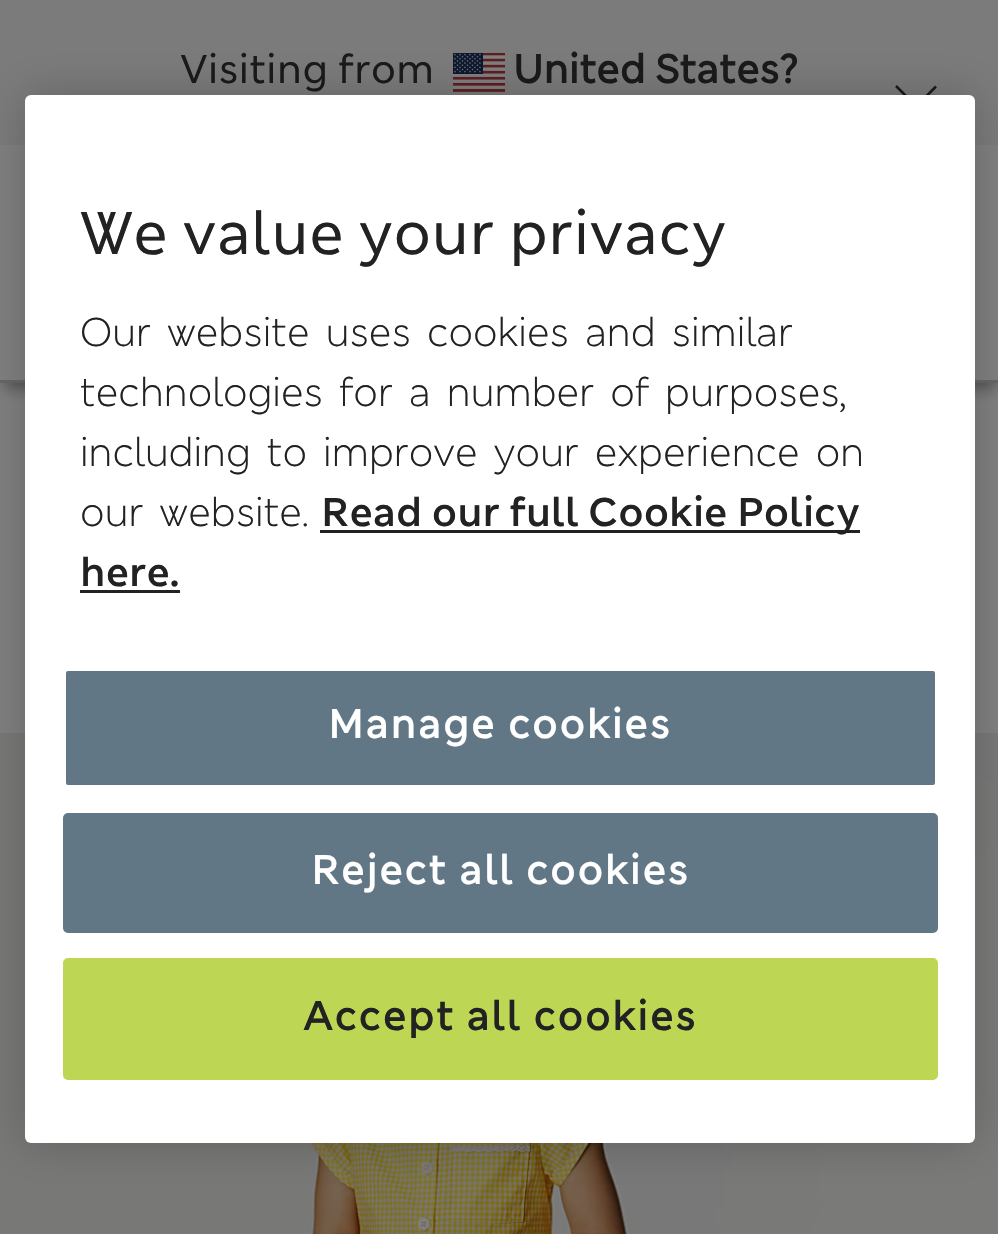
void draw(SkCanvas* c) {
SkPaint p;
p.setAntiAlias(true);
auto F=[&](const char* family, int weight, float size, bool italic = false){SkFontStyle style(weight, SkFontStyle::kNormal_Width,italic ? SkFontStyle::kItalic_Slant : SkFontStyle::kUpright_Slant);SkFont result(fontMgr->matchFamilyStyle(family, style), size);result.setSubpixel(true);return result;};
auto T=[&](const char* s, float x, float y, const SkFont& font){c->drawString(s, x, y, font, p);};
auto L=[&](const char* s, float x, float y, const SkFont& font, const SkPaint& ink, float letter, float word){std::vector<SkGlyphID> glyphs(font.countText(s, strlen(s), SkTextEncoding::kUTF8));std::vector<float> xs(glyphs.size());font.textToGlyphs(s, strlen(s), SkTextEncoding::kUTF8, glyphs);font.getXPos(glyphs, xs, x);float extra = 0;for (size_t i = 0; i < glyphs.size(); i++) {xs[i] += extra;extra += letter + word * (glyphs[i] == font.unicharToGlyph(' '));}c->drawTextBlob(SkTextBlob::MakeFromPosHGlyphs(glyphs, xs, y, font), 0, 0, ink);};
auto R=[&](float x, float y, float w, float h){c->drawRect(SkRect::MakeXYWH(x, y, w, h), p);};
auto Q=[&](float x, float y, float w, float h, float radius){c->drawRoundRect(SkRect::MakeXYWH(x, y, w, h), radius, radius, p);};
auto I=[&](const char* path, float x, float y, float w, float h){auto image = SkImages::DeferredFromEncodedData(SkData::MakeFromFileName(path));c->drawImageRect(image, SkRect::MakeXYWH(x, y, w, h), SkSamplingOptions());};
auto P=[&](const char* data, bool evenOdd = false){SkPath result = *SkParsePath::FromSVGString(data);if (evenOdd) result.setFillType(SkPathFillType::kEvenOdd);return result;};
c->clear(0xff808080);
p.setColor(0xff4d4d4d);
p.setMaskFilter(SkMaskFilter::MakeBlur(kNormal_SkBlurStyle, 7.5));
c->drawRect(SkRect::MakeXYWH(5,15,990,373),p);
p.setMaskFilter(nullptr);
p.setColor(0xff808080);
R(0,145,998,235);
p.setColor(0xff666666);
R(0,380,998,3);
p.setColor(0xff7b7b7b);
R(0,0,998,145);
auto f1 = F("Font",400,40);
p.setColor(0xff1a1a1a);
T("Visiting from",180,83,f1);
I("1.png",453,53,52,39);
auto f2 = F("Font",700,40);
T("United States?",513,83,f2);
p.setStroke(true);
p.setStrokeWidth(2.5);
c->drawPath(P("M896 86l40 40m0-39.5l-39.5 39.5"),p);
I("2.png",0,733,998,501);
p.setStroke(false);
p.setColor(0x33000000);
p.setMaskFilter(SkMaskFilter::MakeBlur(kNormal_SkBlurStyle, 22.5));
c->drawRoundRect(SkRect::MakeXYWH(25,95,950,1048),6,6,p);
p.setMaskFilter(nullptr);
p.setColor(0xffffffff);
Q(25,95,950,1048,6);
auto f3 = F("Font",400,60);
p.setColor(0xff222222);
T("We value your privacy",80,254,f3);
auto f4 = F("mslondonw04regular",400,40);
T("Our website uses cookies and similar",80,346,f4);
T("technologies for a number of purposes,",80,406,f4);
T("including to improve your experience on",80,466,f4);
T("our website.",80,526,f4);
R(320,530,540,3);
auto f5 = F("Font",600,40);
T("Read our full Cookie Policy",321,526,f5);
T("here.",80,586,f5);
R(80,590,100,3);
p.setColor(0xff627786);
c->drawRoundRect(SkRect::MakeXYWH(64.5,669.5,872,117),3.5,3.5,p);
p.setStroke(true);
p.setStrokeWidth(3);
p.setColor(0xffffffff);
c->drawRoundRect(SkRect::MakeXYWH(64.5,669.5,872,117),3.5,3.5,p);
p.setStroke(false);
L("Manage cookies",328,738,f2,p,2,0);
p.setColor(0xff627786);
c->drawRoundRect(SkRect::MakeXYWH(64.5,814.5,872,117),3.5,3.5,p);
p.setStroke(true);
c->drawRoundRect(SkRect::MakeXYWH(64.5,814.5,872,117),3.5,3.5,p);
p.setStroke(false);
p.setColor(0xffffffff);
L("Reject all cookies",311,884,f2,p,2,0);
p.setColor(0xffbdd755);
c->drawRoundRect(SkRect::MakeXYWH(64.5,959.5,872,119),3.5,3.5,p);
p.setStroke(true);
c->drawRoundRect(SkRect::MakeXYWH(64.5,959.5,872,119),3.5,3.5,p);
p.setStroke(false);
p.setColor(0xff222222);
L("Accept all cookies",303,1030,f2,p,2,0);
}
